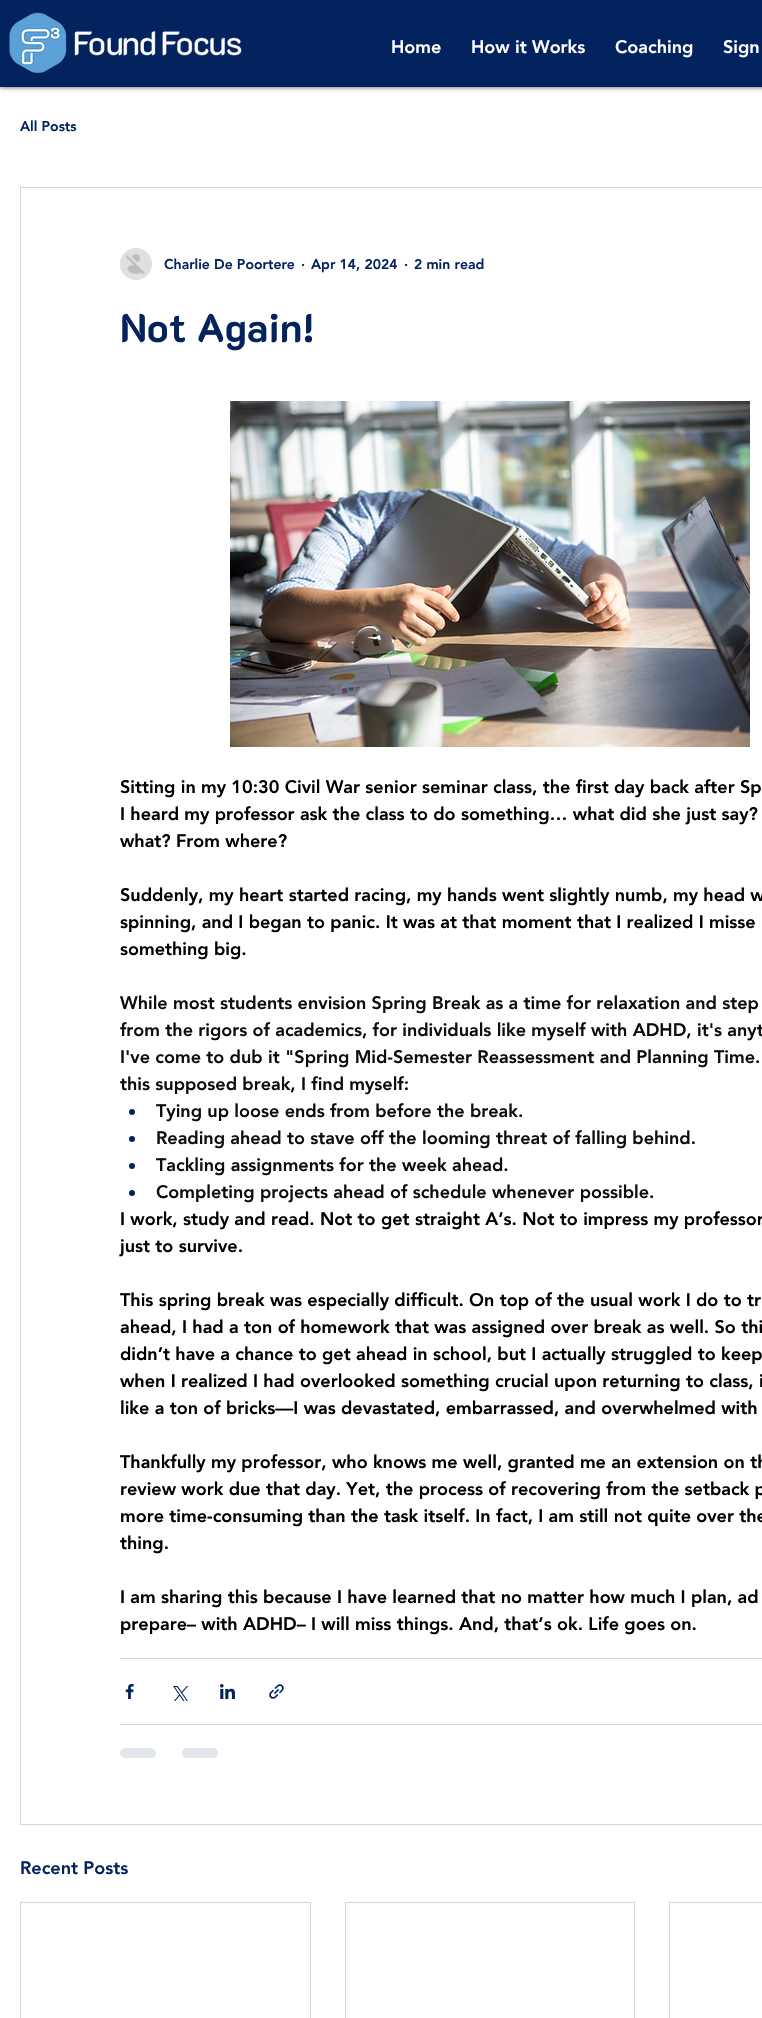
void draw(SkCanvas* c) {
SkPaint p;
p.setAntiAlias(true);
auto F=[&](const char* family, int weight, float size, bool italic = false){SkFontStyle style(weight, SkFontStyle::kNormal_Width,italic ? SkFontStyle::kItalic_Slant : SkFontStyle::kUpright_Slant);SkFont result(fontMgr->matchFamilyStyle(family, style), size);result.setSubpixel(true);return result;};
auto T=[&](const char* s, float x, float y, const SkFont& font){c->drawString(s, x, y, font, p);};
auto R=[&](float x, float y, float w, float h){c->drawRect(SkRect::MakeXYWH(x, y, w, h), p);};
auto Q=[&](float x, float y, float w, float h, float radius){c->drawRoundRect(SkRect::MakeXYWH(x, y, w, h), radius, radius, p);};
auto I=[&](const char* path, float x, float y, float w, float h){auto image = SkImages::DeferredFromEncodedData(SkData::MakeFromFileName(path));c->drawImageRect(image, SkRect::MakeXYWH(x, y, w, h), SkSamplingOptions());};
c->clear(0xffffffff);
p.setColor(0xb3000000);
p.setMaskFilter(SkMaskFilter::MakeBlur(kNormal_SkBlurStyle, 2.5));
c->drawRect(SkRect::MakeXYWH(0,0,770,87),p);
p.setMaskFilter(nullptr);
p.setColor(0xff02235e);
R(0,0,762,87);
I("1.png",9,12,233,62);
auto f1 = F("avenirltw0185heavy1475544",900,18);
p.setColor(0xffffffff);
T("Home",391,53,f1);
T("How it Works",471,53,f1);
T("Coaching",615,53,f1);
T("Sign",723,53,f1);
auto f2 = F("avenirltw0185heavy1475544",900,14);
p.setColor(0xff02235e);
T("All Posts",20,131,f2);
p.setStroke(true);
p.setStrokeWidth(1);
p.setColor(0xffd0d6e1);
c->drawRect(SkRect::MakeXYWH(20.5,187.5,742,1637),p);
I("2.png",120,248,32,32);
p.setStroke(false);
p.setColor(0xff02235e);
T("Charlie De Poortere",164,269,f2);
T("·",301,269,f2);
T("Apr 14, 2024",311,269,f2);
T("·",404,269,f2);
T("2 min read",414,269,f2);
auto f3 = F("K2D",700,40);
T("Not Again!",120,342,f3);
I("3.png",230,401,520,346);
p.setColor(0xff000000);
T("Sitting in my 10:30 Civil War senior seminar class, the first day back after Sp",120,793,f1);
T("I heard my professor ask the class to do something… what did she just say?",120,820,f1);
T("what? From where?",120,847,f1);
T("Suddenly, my heart started racing, my hands went slightly numb, my head w",120,901,f1);
T("spinning, and I began to panic. It was at that moment that I realized I misse",120,928,f1);
T("something big.",120,955,f1);
p.setColor(0xff0d0d0d);
T("While most students envision Spring Break as a time for relaxation and step",120,1009,f1);
T("from the rigors of academics, for individuals like myself with ADHD, it's anyt",120,1036,f1);
T("I've come to dub it \"Spring Mid-Semester Reassessment and Planning Time.",120,1063,f1);
T("this supposed break, I find myself:",120,1090,f1);
p.setColor(0xff02235e);
c->drawCircle(132,1112,3,p);
p.setColor(0xff0d0d0d);
T("Tying up loose ends from before the break.",156,1117,f1);
p.setColor(0xff02235e);
c->drawCircle(132,1139,3,p);
p.setColor(0xff0d0d0d);
T("Reading ahead to stave off the looming threat of falling behind.",156,1144,f1);
p.setColor(0xff02235e);
c->drawCircle(132,1166,3,p);
p.setColor(0xff0d0d0d);
T("Tackling assignments for the week ahead.",156,1171,f1);
p.setColor(0xff02235e);
c->drawCircle(132,1193,3,p);
p.setColor(0xff0d0d0d);
T("Completing projects ahead of schedule whenever possible.",156,1198,f1);
p.setColor(0xff000000);
T("I work, study and read. Not to get straight A’s. Not to impress my professor",120,1225,f1);
T("just to survive.",120,1252,f1);
T("This spring break was especially difficult. On top of the usual work I do to tr",120,1306,f1);
T("ahead, I had a ton of homework that was assigned over break as well. So thi",120,1333,f1);
T("didn’t have a chance to get ahead in school, but I actually struggled to keep",120,1360,f1);
T("when I realized I had overlooked something crucial upon returning to class, i",120,1387,f1);
T("like a ton of bricks—I was devastated, embarrassed, and overwhelmed with",120,1414,f1);
T("Thankfully my professor, who knows me well, granted me an extension on th",120,1468,f1);
T("review work due that day. Yet, the process of recovering from the setback p",120,1495,f1);
T("more time-consuming than the task itself. In fact, I am still not quite over the",120,1522,f1);
T("thing.",120,1549,f1);
T("I am sharing this because I have learned that no matter how much I plan, ad",120,1603,f1);
T("prepare– with ADHD– I will miss things. And, that’s ok. Life goes on.",120,1630,f1);
p.setColor(0xffccd3df);
R(120,1658,642,1);
I("4.png",125,1684,9,15);
I("5.png",173,1686,15,15);
I("6.png",220,1684,15,15);
I("7.png",269,1684,15,15);
R(120,1724,642,1);
p.setColor(0xffe1e5ec);
Q(120,1748,36,10,5);
Q(182,1748,36,10,5);
p.setColor(0xff02235e);
T("Recent Posts",20,1874,f1);
p.setStroke(true);
p.setColor(0xffd0d6e1);
c->drawRect(SkRect::MakeXYWH(20.5,1902.5,290,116),p);
c->drawRect(SkRect::MakeXYWH(345.5,1902.5,289,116),p);
c->drawRect(SkRect::MakeXYWH(669.5,1902.5,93,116),p);
}
